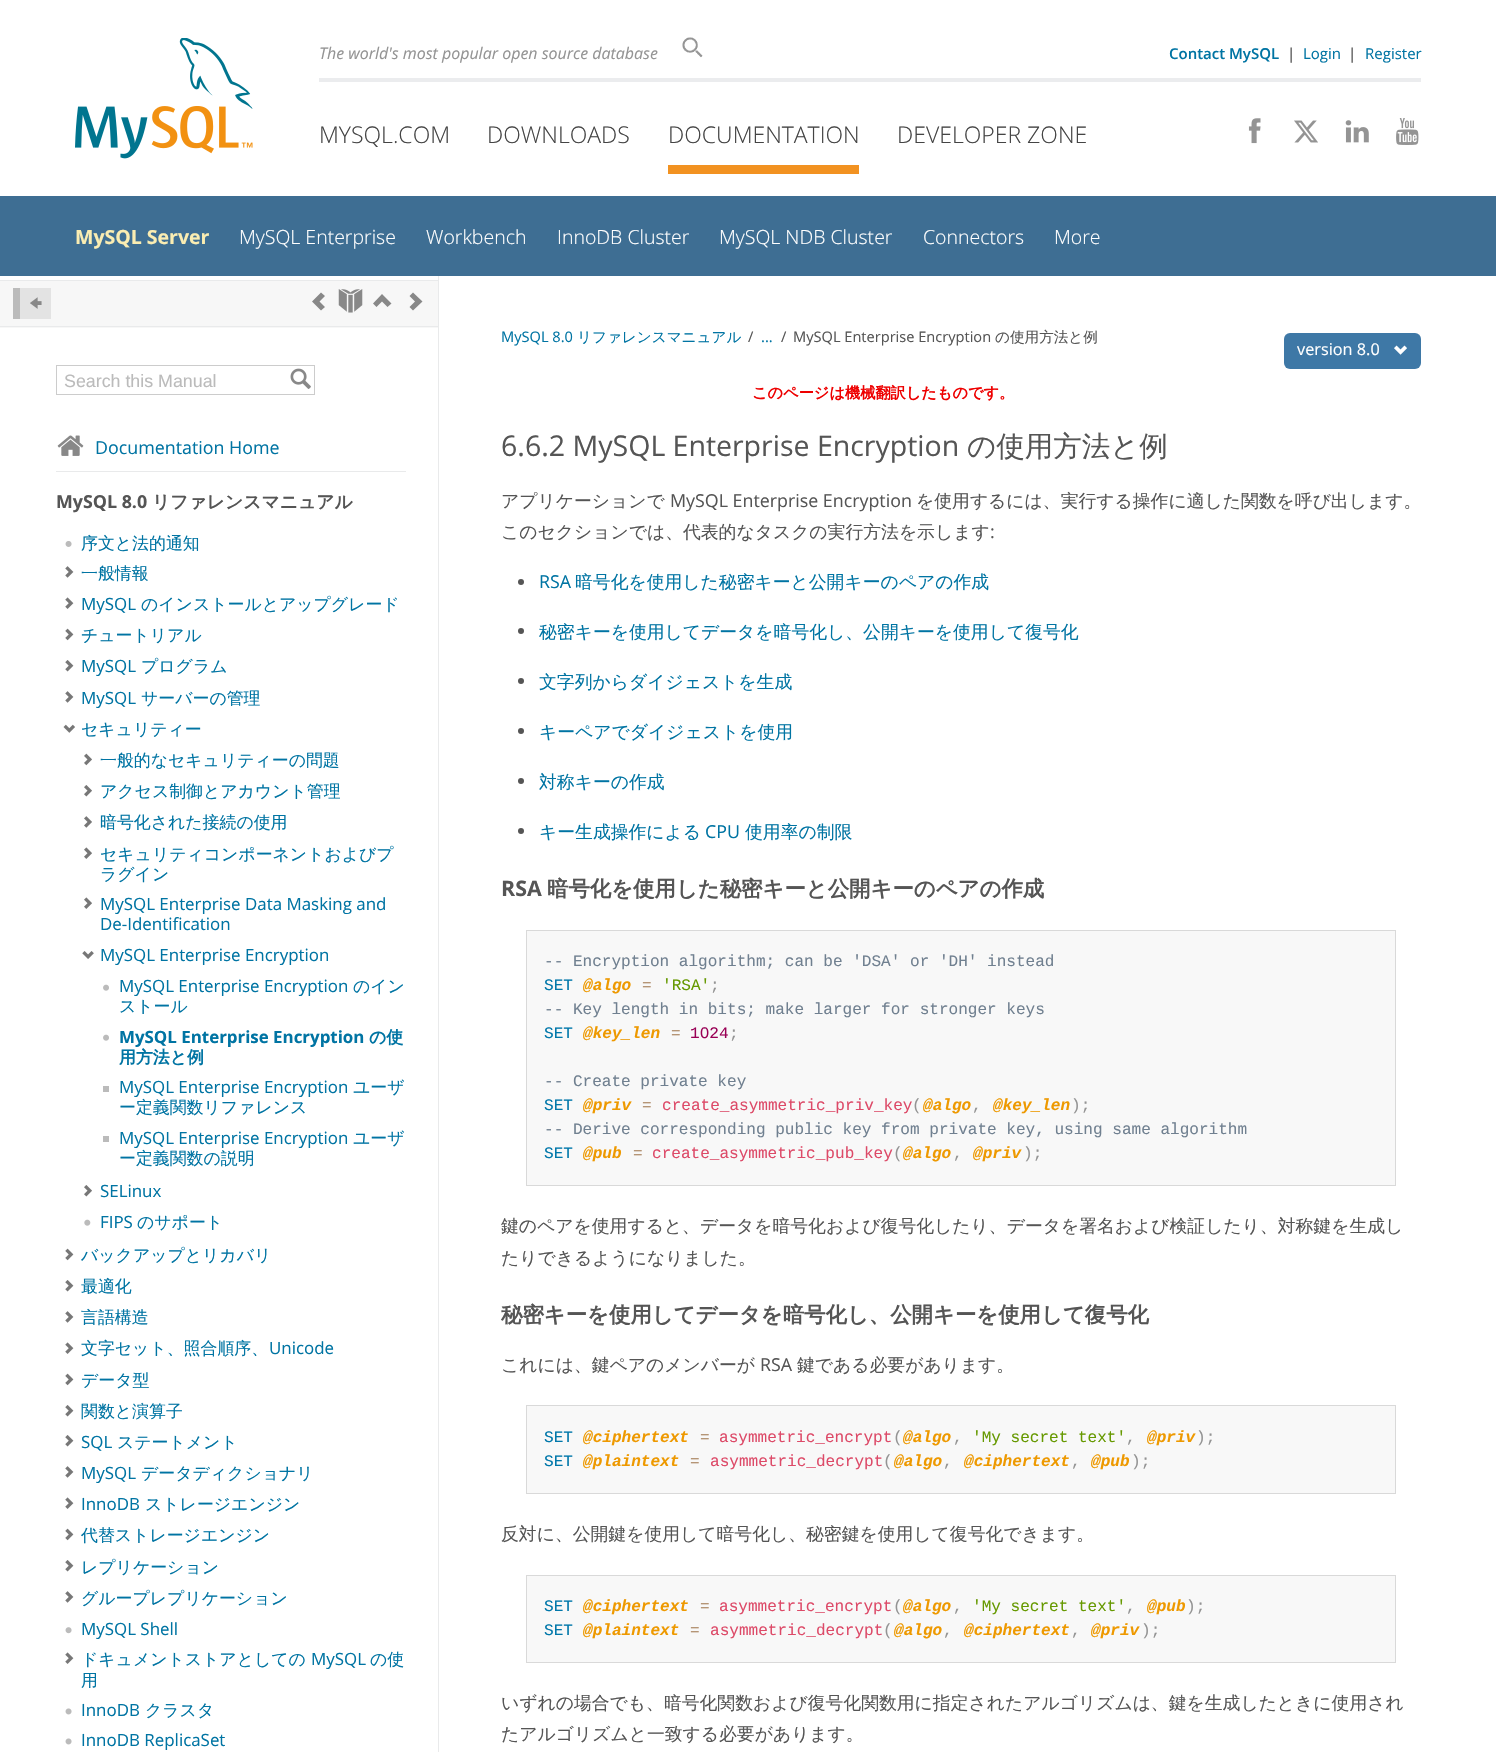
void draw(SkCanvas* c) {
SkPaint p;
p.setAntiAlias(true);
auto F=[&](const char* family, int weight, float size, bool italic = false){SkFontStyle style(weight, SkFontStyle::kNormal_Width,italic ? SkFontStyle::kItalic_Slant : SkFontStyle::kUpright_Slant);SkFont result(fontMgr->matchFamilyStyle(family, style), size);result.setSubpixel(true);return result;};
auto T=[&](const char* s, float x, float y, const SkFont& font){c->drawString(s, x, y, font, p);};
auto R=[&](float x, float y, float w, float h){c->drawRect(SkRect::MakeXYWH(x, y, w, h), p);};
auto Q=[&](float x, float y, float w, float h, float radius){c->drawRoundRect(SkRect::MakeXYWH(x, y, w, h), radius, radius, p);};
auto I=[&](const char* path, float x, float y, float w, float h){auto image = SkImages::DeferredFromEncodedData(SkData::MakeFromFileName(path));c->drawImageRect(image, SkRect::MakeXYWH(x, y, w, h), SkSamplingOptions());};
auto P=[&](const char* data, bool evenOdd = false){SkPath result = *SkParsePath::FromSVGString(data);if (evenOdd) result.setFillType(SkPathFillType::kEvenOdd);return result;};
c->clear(0xffffffff);
I("1.png",75,38,178,121);
p.setColor(0xffebecee);
R(319,78,1102,4);
auto f1 = F("Open Sans",400,16,true);
p.setColor(0xff949494);
T("The world's most popular open source database",319,59,f1);
I("2.png",682,37,21,21);
auto f2 = F("Open Sans",600,15);
p.setColor(0xff0074a3);
T("Contact MySQL",1169,59,f2);
auto f3 = F("Open Sans",400,15);
p.setColor(0xff444444);
T("|",1287,59,f3);
p.setColor(0xff0074a3);
T("Login",1303,59,f3);
p.setColor(0xff444444);
T("|",1348,59,f3);
p.setColor(0xff0074a3);
T("Register",1365,59,f3);
auto f4 = F("Open Sans",300,23);
p.setColor(0xff444444);
T("MYSQL.COM",319,143,f4);
T("DOWNLOADS",487,143,f4);
p.setColor(0xfff29221);
R(668,165,191,9);
p.setColor(0xff444444);
T("DOCUMENTATION",668,143,f4);
T("DEVELOPER ZONE",897,143,f4);
I("3.png",1248,118,13,26);
I("4.png",1294,120,24,23);
I("5.png",1345,120,24,23);
I("6.png",1396,118,23,27);
p.setColor(0xff3e6e93);
R(0,196,1496,80);
auto f5 = F("Open Sans",700,19.5);
p.setColor(0xfffaedb2);
T("MySQL Server",75,244,f5);
auto f6 = F("Open Sans",300,19.5);
p.setColor(0xffffffff);
T("MySQL Enterprise",239,244,f6);
T("Workbench",426,244,f6);
T("InnoDB Cluster",557,244,f6);
T("MySQL NDB Cluster",719,244,f6);
T("Connectors",923,244,f6);
T("More",1054,244,f6);
p.setColor(0xffe9eaeb);
R(438,276,1,1476);
p.setColor(0xfff7f7f7);
R(0,281,438,47);
p.setColor(0xffe9eaeb);
R(0,280,438,1);
R(0,326,438,1);
p.setColor(0xffe3e3e3);
R(20,288,31,31);
p.setColor(0xffbbbbbb);
R(13,288,7,31);
I("7.png",30,297,12,12);
p.setColor(0xff888888);
c->drawPath(P("M325 296l-4-3.5l-9 9l9 9l4-3.5l-5.5-5.5z"),p);
I("8.png",338,289,25,24);
c->drawPath(P("M382 294l-9 9.5l3.5 3.5l5.5-5.5l5.5 5.5l4-3.5zm31-1.5l-3.5 3.5l5.5 5.5l-5.5 5.5l3.5 3.5l9.5-9z"),p);
p.setStroke(true);
p.setStrokeWidth(1);
p.setColor(0xffcccccc);
c->drawRect(SkRect::MakeXYWH(56.5,365.5,258,29),p);
auto f7 = F("Liberation Sans",400,17.82);
p.setStroke(false);
p.setColor(0xffbbbbbb);
T("Search this Manual",64,387,f7);
I("9.png",290,368,21,21);
I("10.png",57,435,27,21);
auto f8 = F("Open Sans",400,17.82);
p.setColor(0xff0074a3);
T("Documentation Home",95,454,f8);
p.setColor(0xffe9eaeb);
R(56,471,350,1);
auto f9 = F("Open Sans",700,17.82);
p.setColor(0xff555555);
T("MySQL 8.0",56,508,f9);
auto f10 = F("WenQuanYi Zen Hei",700,17.82);
T("リファレンスマニュアル",152,508,f10);
I("11.png",65,541,7,6);
auto f11 = F("WenQuanYi Zen Hei",500,16.9);
p.setColor(0xff0074a3);
T("序文と法的通知",81,549,f11);
I("12.png",65,566,9,12);
T("一般情報",81,579,f11);
I("13.png",65,597,9,12);
auto f12 = F("Open Sans",400,16.9);
T("MySQL",81,610,f12);
T("のインストールとアップグレード",141,610,f11);
I("14.png",65,628,9,13);
T("チュートリアル",81,641,f11);
I("15.png",65,660,9,12);
T("MySQL",81,672,f12);
T("プログラム",141,672,f11);
I("12.png",65,691,9,12);
T("MySQL",81,704,f12);
T("サーバーの管理",141,704,f11);
I("16.png",63,724,12,9);
T("セキュリティー",81,735,f11);
I("17.png",84,753,8,13);
T("一般的なセキュリティーの問題",100,766,f11);
I("18.png",84,785,8,12);
T("アクセス制御とアカウント管理",100,797,f11);
I("19.png",84,816,8,12);
T("暗号化された接続の使用",100,828,f11);
I("20.png",84,847,8,12);
T("セキュリティコンポーネントおよびプ",100,860,f11);
T("ラグイン",100,880,f11);
I("20.png",84,897,8,12);
T("MySQL Enterprise Data Masking and",100,910,f12);
T("De-Identification",100,930,f12);
I("21.png",82,951,12,8);
T("MySQL Enterprise Encryption",100,961,f12);
I("22.png",103,984,6,7);
T("MySQL Enterprise Encryption",119,992,f12);
T("のイン",353,992,f11);
T("ストール",119,1012,f11);
I("22.png",103,1034,6,7);
auto f13 = F("Open Sans",700,16.9);
T("MySQL Enterprise Encryption",119,1043,f13);
auto f14 = F("WenQuanYi Zen Hei",700,16.9);
T("の使",369,1043,f14);
T("用方法と例",119,1063,f14);
p.setColor(0xffbbbbbb);
R(103,1086,6,6);
p.setColor(0xff0074a3);
T("MySQL Enterprise Encryption",119,1093,f12);
T("ユーザ",353,1093,f11);
T("ー定義関数リファレンス",119,1113,f11);
p.setColor(0xffbbbbbb);
R(103,1136,6,6);
p.setColor(0xff0074a3);
T("MySQL Enterprise Encryption",119,1144,f12);
T("ユーザ",353,1144,f11);
T("ー定義関数の説明",119,1164,f11);
I("18.png",84,1185,8,12);
T("SELinux",100,1197,f12);
I("23.png",84,1219,7,7);
T("FIPS",100,1228,f12);
T("のサポート",137,1228,f11);
I("14.png",65,1248,9,13);
T("バックアップとリカバリ",81,1261,f11);
I("15.png",65,1280,9,12);
T("最適化",81,1292,f11);
I("12.png",65,1311,9,12);
T("言語構造",81,1323,f11);
I("13.png",65,1342,9,12);
T("文字セット、照合順序、",81,1354,f11);
T("Unicode",269,1354,f12);
I("14.png",65,1373,9,13);
T("データ型",81,1386,f11);
I("15.png",65,1405,9,12);
T("関数と演算子",81,1417,f11);
I("15.png",65,1435,9,12);
T("SQL",81,1448,f12);
T("ステートメント",117,1448,f11);
I("12.png",65,1466,9,12);
T("MySQL",81,1479,f12);
T("データディクショナリ",141,1479,f11);
I("13.png",65,1497,9,12);
T("InnoDB",81,1510,f12);
T("ストレージエンジン",145,1510,f11);
I("14.png",65,1528,9,13);
T("代替ストレージエンジン",81,1541,f11);
I("15.png",65,1560,9,12);
T("レプリケーション",81,1573,f11);
I("12.png",65,1591,9,12);
T("グループレプリケーション",81,1604,f11);
I("24.png",65,1627,7,7);
T("MySQL Shell",81,1635,f12);
I("13.png",65,1652,9,12);
T("ドキュメントストアとしての",81,1665,f11);
T("MySQL",311,1665,f12);
T("の使",370,1665,f11);
T("用",81,1686,f11);
I("25.png",65,1708,7,7);
T("InnoDB",81,1716,f12);
T("クラスタ",145,1716,f11);
I("25.png",65,1738,7,7);
T("InnoDB ReplicaSet",81,1746,f12);
auto f15 = F("Open Sans",400,14.6);
T("MySQL 8.0",501,342,f15);
auto f16 = F("WenQuanYi Zen Hei",500,14.6);
T("リファレンスマニュアル",577,342,f16);
p.setColor(0xff555555);
T("/",748,342,f15);
p.setColor(0xff0074a3);
T("...",761,342,f15);
p.setColor(0xff555555);
T("/",781,342,f15);
T("MySQL Enterprise Encryption",793,342,f15);
T("の使用方法と例",995,342,f16);
p.setColor(0xff3e78a6);
Q(1284,333,137,36,6);
auto f17 = F("Open Sans",400,16.25);
p.setColor(0xffffffff);
T("version 8.0",1297,355,f17);
I("26.png",1394,345,13,10);
auto f18 = F("WenQuanYi Zen Hei",700,15.2);
p.setColor(0xffee0000);
T("このページは機械翻訳したものです。",752,398,f18);
auto f19 = F("Open Sans",400,28.5);
p.setColor(0xff555555);
T("6.6.2 MySQL Enterprise Encryption",501,456,f19);
auto f20 = F("WenQuanYi Zen Hei",500,28.5);
T("の使用方法と例",967,456,f20);
auto f21 = F("WenQuanYi Zen Hei",500,17.82);
T("アプリケーションで",501,507,f21);
T("MySQL Enterprise Encryption",670,507,f8);
T("を使用するには、実行する操作に適した関数を呼び出します。",916,507,f21);
T("このセクションでは、代表的なタスクの実行方法を示します",501,538,f21);
T(":",990,538,f8);
c->drawCircle(521,582,3,p);
p.setColor(0xff0074a3);
T("RSA",539,588,f8);
T("暗号化を使用した秘密キーと公開キーのペアの作成",575,588,f21);
p.setColor(0xff555555);
c->drawCircle(521,631,3,p);
p.setColor(0xff0074a3);
T("秘密キーを使用してデータを暗号化し、公開キーを使用して復号化",539,638,f21);
p.setColor(0xff555555);
c->drawCircle(521,681,3,p);
p.setColor(0xff0074a3);
T("文字列からダイジェストを生成",539,688,f21);
p.setColor(0xff555555);
c->drawCircle(521,731,3,p);
p.setColor(0xff0074a3);
T("キーペアでダイジェストを使用",539,738,f21);
p.setColor(0xff555555);
c->drawCircle(521,781,3,p);
p.setColor(0xff0074a3);
T("対称キーの作成",539,788,f21);
p.setColor(0xff555555);
c->drawCircle(521,831,3,p);
p.setColor(0xff0074a3);
T("キー生成操作による",539,838,f21);
T("CPU",705,838,f8);
T("使用率の制限",745,838,f21);
auto f22 = F("Open Sans",700,21.4);
p.setColor(0xff555555);
T("RSA",501,896,f22);
auto f23 = F("WenQuanYi Zen Hei",700,21.4);
T("暗号化を使用した秘密キーと公開キーのペアの作成",547,896,f23);
p.setColor(0xfff8f8f8);
c->drawRect(SkRect::MakeXYWH(526.5,930.5,869,255),p);
p.setStroke(true);
p.setColor(0xffd9d9d9);
c->drawRect(SkRect::MakeXYWH(526.5,930.5,869,255),p);
auto f24 = F("Liberation Mono",400,16.05);
p.setStroke(false);
p.setColor(0xff708090);
T("-- Encryption algorithm; can be 'DSA' or 'DH' instead",544,966,f24);
p.setColor(0xff0077aa);
T("SET",544,990,f24);
auto f25 = F("Liberation Mono",700,16.05,true);
p.setColor(0xffee9900);
T("@algo",583,990,f25);
p.setColor(0xffa67f59);
T("=",642,990,f24);
p.setColor(0xff669900);
T("'RSA'",662,990,f24);
p.setColor(0xff949494);
T(";",710,990,f24);
p.setColor(0xff708090);
T("-- Key length in bits; make larger for stronger keys",544,1014,f24);
p.setColor(0xff0077aa);
T("SET",544,1038,f24);
p.setColor(0xffee9900);
T("@key_len",583,1038,f25);
p.setColor(0xffa67f59);
T("=",671,1038,f24);
p.setColor(0xff990055);
T("1024",690,1038,f24);
p.setColor(0xff949494);
T(";",729,1038,f24);
p.setColor(0xff708090);
T("-- Create private key",544,1086,f24);
p.setColor(0xff0077aa);
T("SET",544,1110,f24);
p.setColor(0xffee9900);
T("@priv",583,1110,f25);
p.setColor(0xffa67f59);
T("=",642,1110,f24);
p.setColor(0xffdd4a68);
T("create_asymmetric_priv_key",662,1110,f24);
p.setColor(0xff949494);
T("(",912,1110,f24);
p.setColor(0xffee9900);
T("@algo",923,1110,f25);
T("@key_len",993,1110,f25);
p.setColor(0xff949494);
T(");",1071,1110,f24);
T(",",972,1110,f24);
p.setColor(0xff708090);
T("-- Derive corresponding public key from private key, using same algorithm",544,1134,f24);
p.setColor(0xff0077aa);
T("SET",544,1158,f24);
p.setColor(0xffee9900);
T("@pub",583,1158,f25);
p.setColor(0xffa67f59);
T("=",633,1158,f24);
p.setColor(0xffdd4a68);
T("create_asymmetric_pub_key",652,1158,f24);
p.setColor(0xff949494);
T("(",893,1158,f24);
p.setColor(0xffee9900);
T("@algo",903,1158,f25);
T("@priv",973,1158,f25);
p.setColor(0xff949494);
T(");",1023,1158,f24);
T(",",953,1158,f24);
p.setColor(0xff555555);
T("鍵のペアを使用すると、データを暗号化および復号化したり、データを署名および検証したり、対称鍵を生成し",501,1232,f21);
T("たりできるようになりました。",501,1264,f21);
T("秘密キーを使用してデータを暗号化し、公開キーを使用して復号化",501,1322,f23);
T("これには、鍵ペアのメンバーが",501,1371,f21);
T("RSA",760,1371,f8);
T("鍵である必要があります。",797,1371,f21);
p.setColor(0xfff8f8f8);
c->drawRect(SkRect::MakeXYWH(526.5,1405.5,869,88),p);
p.setStroke(true);
p.setColor(0xffd9d9d9);
c->drawRect(SkRect::MakeXYWH(526.5,1405.5,869,88),p);
p.setStroke(false);
p.setColor(0xff0077aa);
T("SET",544,1442,f24);
p.setColor(0xffee9900);
T("@ciphertext",583,1442,f25);
p.setColor(0xffa67f59);
T("=",700,1442,f24);
p.setColor(0xffdd4a68);
T("asymmetric_encrypt",719,1442,f24);
p.setColor(0xff949494);
T("(",893,1442,f24);
p.setColor(0xffee9900);
T("@algo",903,1442,f25);
p.setColor(0xff669900);
T("'My secret text'",972,1442,f24);
p.setColor(0xffee9900);
T("@priv",1147,1442,f25);
p.setColor(0xff949494);
T(");",1196,1442,f24);
T(",",953,1442,f24);
T(",",1126,1442,f24);
p.setColor(0xff0077aa);
T("SET",544,1466,f24);
p.setColor(0xffee9900);
T("@plaintext",583,1466,f25);
p.setColor(0xffa67f59);
T("=",690,1466,f24);
p.setColor(0xffdd4a68);
T("asymmetric_decrypt",710,1466,f24);
p.setColor(0xff949494);
T("(",883,1466,f24);
p.setColor(0xffee9900);
T("@algo",894,1466,f25);
T("@ciphertext",964,1466,f25);
T("@pub",1091,1466,f25);
p.setColor(0xff949494);
T(");",1131,1466,f24);
T(",",943,1466,f24);
T(",",1071,1466,f24);
p.setColor(0xff555555);
T("反対に、公開鍵を使用して暗号化し、秘密鍵を使用して復号化できます。",501,1540,f21);
p.setColor(0xfff8f8f8);
c->drawRect(SkRect::MakeXYWH(526.5,1575.5,869,87),p);
p.setStroke(true);
p.setColor(0xffd9d9d9);
c->drawRect(SkRect::MakeXYWH(526.5,1575.5,869,87),p);
p.setStroke(false);
p.setColor(0xff0077aa);
T("SET",544,1611,f24);
p.setColor(0xffee9900);
T("@ciphertext",583,1611,f25);
p.setColor(0xffa67f59);
T("=",700,1611,f24);
p.setColor(0xffdd4a68);
T("asymmetric_encrypt",719,1611,f24);
p.setColor(0xff949494);
T("(",893,1611,f24);
p.setColor(0xffee9900);
T("@algo",903,1611,f25);
p.setColor(0xff669900);
T("'My secret text'",972,1611,f24);
p.setColor(0xffee9900);
T("@pub",1147,1611,f25);
p.setColor(0xff949494);
T(");",1186,1611,f24);
T(",",953,1611,f24);
T(",",1126,1611,f24);
p.setColor(0xff0077aa);
T("SET",544,1635,f24);
p.setColor(0xffee9900);
T("@plaintext",583,1635,f25);
p.setColor(0xffa67f59);
T("=",690,1635,f24);
p.setColor(0xffdd4a68);
T("asymmetric_decrypt",710,1635,f24);
p.setColor(0xff949494);
T("(",883,1635,f24);
p.setColor(0xffee9900);
T("@algo",894,1635,f25);
T("@ciphertext",964,1635,f25);
T("@priv",1091,1635,f25);
p.setColor(0xff949494);
T(");",1141,1635,f24);
T(",",943,1635,f24);
T(",",1071,1635,f24);
p.setColor(0xff555555);
T("いずれの場合でも、暗号化関数および復号化関数用に指定されたアルゴリズムは、鍵を生成したときに使用され",501,1709,f21);
T("たアルゴリズムと一致する必要があります。",501,1740,f21);
}
